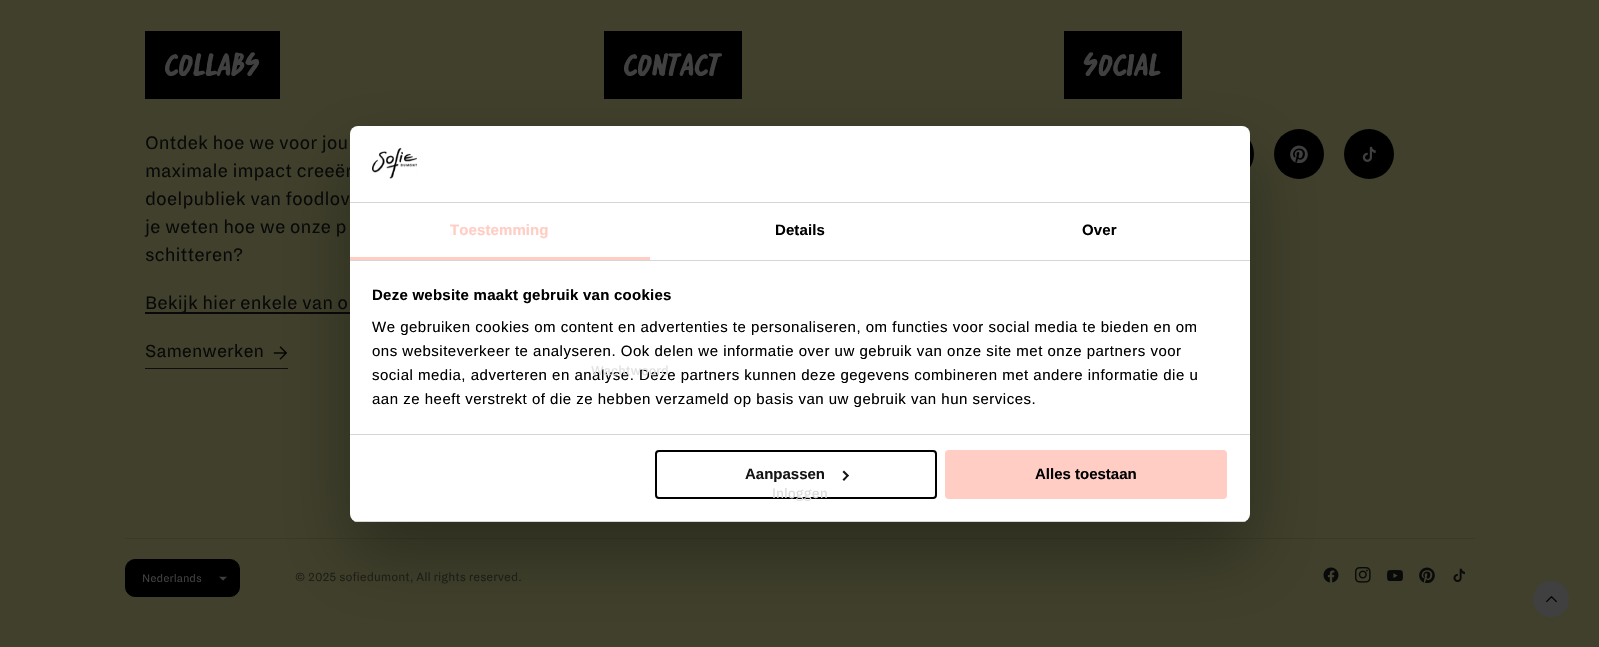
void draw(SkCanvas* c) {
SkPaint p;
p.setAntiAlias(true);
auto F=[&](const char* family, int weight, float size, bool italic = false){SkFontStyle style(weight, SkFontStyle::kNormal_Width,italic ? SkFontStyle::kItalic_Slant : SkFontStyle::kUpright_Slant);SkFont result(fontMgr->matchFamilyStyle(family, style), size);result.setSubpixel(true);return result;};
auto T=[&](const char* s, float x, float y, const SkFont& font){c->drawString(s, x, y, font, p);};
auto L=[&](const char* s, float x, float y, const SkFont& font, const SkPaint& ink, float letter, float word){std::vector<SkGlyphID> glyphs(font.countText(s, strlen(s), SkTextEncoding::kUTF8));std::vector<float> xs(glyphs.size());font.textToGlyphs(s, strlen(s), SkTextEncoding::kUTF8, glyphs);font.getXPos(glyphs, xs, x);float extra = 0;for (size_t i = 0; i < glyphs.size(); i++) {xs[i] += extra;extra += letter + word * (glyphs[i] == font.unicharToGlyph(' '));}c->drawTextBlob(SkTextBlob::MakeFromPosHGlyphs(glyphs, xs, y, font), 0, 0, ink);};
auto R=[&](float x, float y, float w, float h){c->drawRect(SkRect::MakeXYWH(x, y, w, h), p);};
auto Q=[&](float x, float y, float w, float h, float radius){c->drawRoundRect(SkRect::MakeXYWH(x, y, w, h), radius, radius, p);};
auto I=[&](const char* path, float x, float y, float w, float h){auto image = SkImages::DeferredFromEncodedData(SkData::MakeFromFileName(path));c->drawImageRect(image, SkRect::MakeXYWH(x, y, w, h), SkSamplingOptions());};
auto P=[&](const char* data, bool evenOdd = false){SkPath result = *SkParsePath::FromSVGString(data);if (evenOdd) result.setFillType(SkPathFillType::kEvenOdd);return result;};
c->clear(0xff40402c);
p.setColor(0xff000000);
R(145,31,135,68);
auto f1 = F("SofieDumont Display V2",400,48);
p.setColor(0xff404040);
L("Collabs",165,76,f1,p,1,0);
auto f2 = F("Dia",400,20);
p.setColor(0xff090909);
T("Ontdek hoe we voor jou",145,149,f2);
T("maximale impact creeër",145,177,f2);
T("doelpubliek van foodlov",145,205,f2);
T("je weten hoe we onze p",145,233,f2);
T("schitteren?",145,261,f2);
R(145,312,205,2);
T("Bekijk hier enkele van o",145,309,f2);
p.setColor(0xff0d0d0d);
R(145,368,143,1);
auto f3 = F("Dia",400,19.25);
p.setColor(0xff090909);
T("Samenwerken",145,357,f3);
I("1.png",273,346,15,14);
p.setColor(0xff000000);
R(604,31,138,68);
p.setColor(0xff404040);
L("Contact",624,76,f1,p,1,0);
p.setColor(0xff000000);
R(1064,31,118,68);
p.setColor(0xff404040);
L("Social",1084,76,f1,p,1,0);
p.setColor(0xff000000);
c->drawCircle(1229,154,25,p);
c->drawCircle(1299,154,25,p);
I("2.png",1290,145,18,18);
c->drawCircle(1369,154,25,p);
I("3.png",1362,146,14,16);
p.setColor(0xff3a3a28);
R(125,538,1350,1);
p.setColor(0xff000000);
c->drawRoundRect(SkRect::MakeXYWH(125.5,559.5,114,37),9.5,9.5,p);
p.setStroke(true);
p.setStrokeWidth(1);
c->drawRoundRect(SkRect::MakeXYWH(125.5,559.5,114,37),9.5,9.5,p);
auto f4 = F("Dia",400,12);
p.setStroke(false);
p.setColor(0xff404040);
T("Nederlands",142,582,f4);
I("4.png",219,576,8,5);
auto f5 = F("Dia",400,13);
p.setColor(0xff1f1f17);
T("© 2025 sofiedumont, All rights reserved.",295,581,f5);
I("5.png",1323,567,16,16);
I("6.png",1355,567,16,16);
I("7.png",1387,570,16,11);
I("8.png",1419,567,16,16);
I("9.png",1453,568,12,14);
p.setColor(0x4d000000);
p.setMaskFilter(SkMaskFilter::MakeBlur(kNormal_SkBlurStyle, 34));
c->drawRoundRect(SkRect::MakeXYWH(350,158,900,396),8,8,p);
p.setMaskFilter(nullptr);
p.setColor(0xffffffff);
Q(350,126,900,396,8);
p.setColor(0xffd6d6d6);
R(350,202,900,1);
I("10.png",372,147,45,32);
R(350,260,900,1);
p.setColor(0xffffcdc3);
R(350,257,300,3);
auto f6 = F("Liberation Sans",700,15);
L("Toestemming",450,235,f6,p,.1,0);
p.setColor(0xff000000);
L("Details",775,235,f6,p,.1,0);
L("Over",1082,235,f6,p,.1,0);
p.setColor(0xffd6d6d6);
R(350,434,900,1);
p.setColor(0xff000000);
L("Deze website maakt gebruik van cookies",372,300,f6,p,.25,0);
auto f7 = F("Liberation Sans",400,15);
L("We gebruiken cookies om content en advertenties te personaliseren, om functies voor social media te bieden en om",372,332,f7,p,.5,0);
L("ons websiteverkeer te analyseren. Ook delen we informatie over uw gebruik van onze site met onze partners voor",372,356,f7,p,.5,0);
L("social media, adverteren en analyse. Deze partners kunnen deze gegevens combineren met andere informatie die u",372,380,f7,p,.5,0);
L("aan ze heeft verstrekt of die ze hebben verzameld op basis van uw gebruik van hun services.",372,404,f7,p,.5,0);
c->save();
c->clipPath(P("M358 126h884c4.5 0 8 3.5 8 8v380c0 4.5-3.5 8-8 8h-884c-4.5 0-8-3.5-8-8v-380c0-4.5 3.5-8 8-8z"),true);
p.setColor(0xffd6d6d6);
R(350,521,900,1);
c->restore();
p.setStroke(true);
p.setStrokeWidth(2);
p.setColor(0xff000000);
c->drawRoundRect(SkRect::MakeXYWH(656,451,280,47),3,3,p);
p.setStroke(false);
p.setColor(0xff141414);
T("Aanpassen",745,479,f6);
c->drawPath(P("M844 470.5l5 5l-1.5 1.5l-5-5z"),p);
c->drawPath(P("M847.5 474.5l1.5 1l-5 5.5l-1.5-1.5z"),p);
p.setColor(0xffffcdc3);
c->drawRoundRect(SkRect::MakeXYWH(946,451,280,47),3,3,p);
p.setStroke(true);
c->drawRoundRect(SkRect::MakeXYWH(946,451,280,47),3,3,p);
p.setStroke(false);
p.setColor(0xff000000);
T("Alles toestaan",1035,479,f6);
auto f8 = F("Dia",400,14);
p.setColor(0xffe0e0e0);
T("Wachtwoord",591,375,f8);
auto f9 = F("Dia",400,15);
p.setColor(0xffdadada);
T("Inloggen",772,498,f9);
p.setColor(0xff404040);
c->drawCircle(1551,599,18,p);
I("11.png",1546,596,11,7);
}
